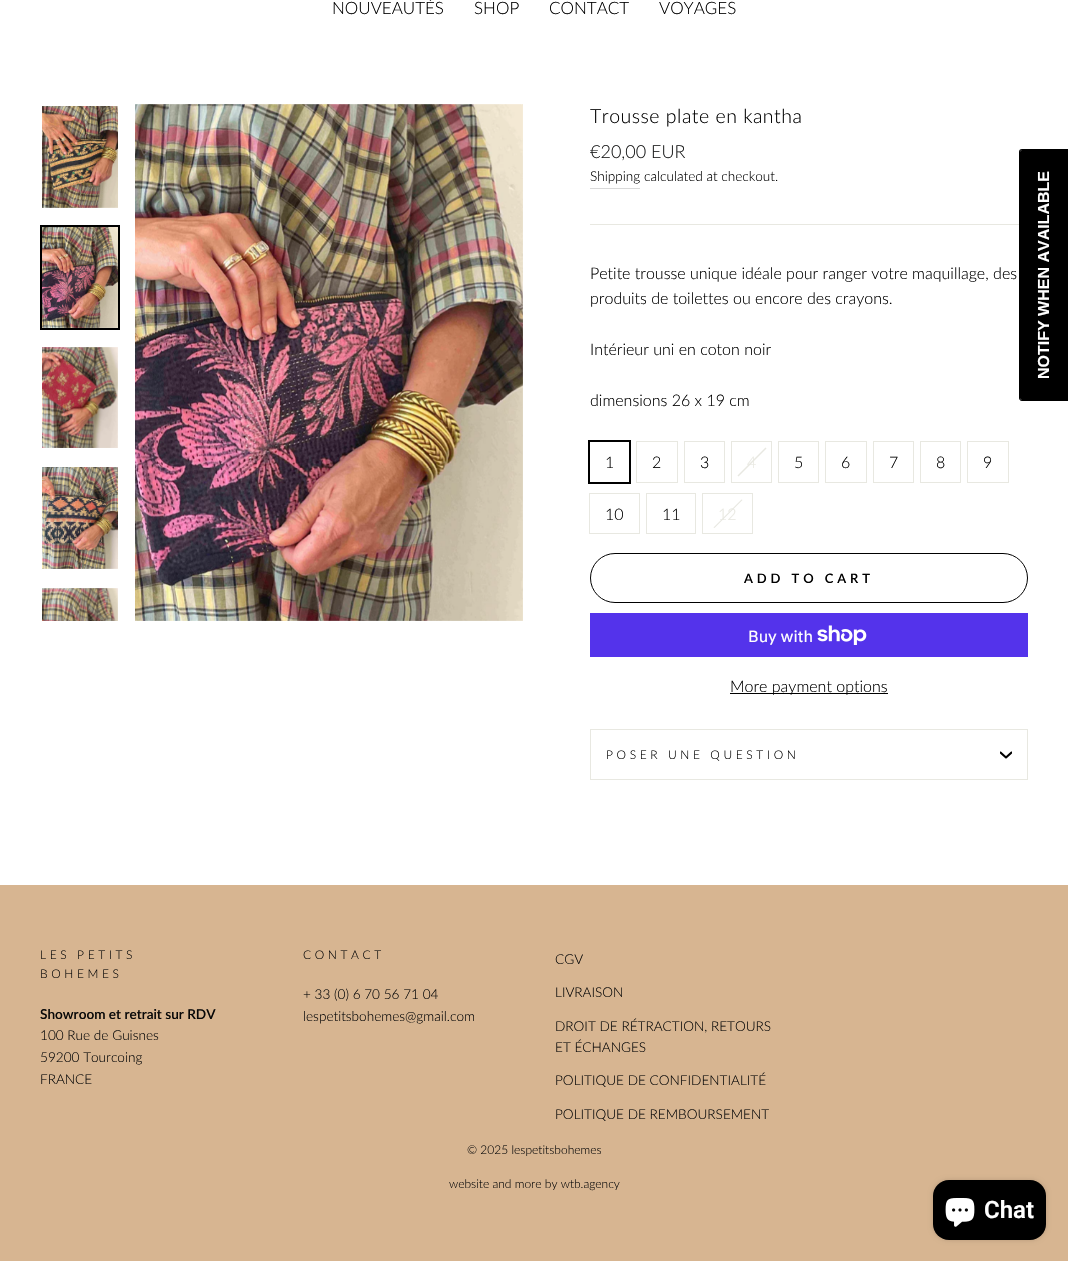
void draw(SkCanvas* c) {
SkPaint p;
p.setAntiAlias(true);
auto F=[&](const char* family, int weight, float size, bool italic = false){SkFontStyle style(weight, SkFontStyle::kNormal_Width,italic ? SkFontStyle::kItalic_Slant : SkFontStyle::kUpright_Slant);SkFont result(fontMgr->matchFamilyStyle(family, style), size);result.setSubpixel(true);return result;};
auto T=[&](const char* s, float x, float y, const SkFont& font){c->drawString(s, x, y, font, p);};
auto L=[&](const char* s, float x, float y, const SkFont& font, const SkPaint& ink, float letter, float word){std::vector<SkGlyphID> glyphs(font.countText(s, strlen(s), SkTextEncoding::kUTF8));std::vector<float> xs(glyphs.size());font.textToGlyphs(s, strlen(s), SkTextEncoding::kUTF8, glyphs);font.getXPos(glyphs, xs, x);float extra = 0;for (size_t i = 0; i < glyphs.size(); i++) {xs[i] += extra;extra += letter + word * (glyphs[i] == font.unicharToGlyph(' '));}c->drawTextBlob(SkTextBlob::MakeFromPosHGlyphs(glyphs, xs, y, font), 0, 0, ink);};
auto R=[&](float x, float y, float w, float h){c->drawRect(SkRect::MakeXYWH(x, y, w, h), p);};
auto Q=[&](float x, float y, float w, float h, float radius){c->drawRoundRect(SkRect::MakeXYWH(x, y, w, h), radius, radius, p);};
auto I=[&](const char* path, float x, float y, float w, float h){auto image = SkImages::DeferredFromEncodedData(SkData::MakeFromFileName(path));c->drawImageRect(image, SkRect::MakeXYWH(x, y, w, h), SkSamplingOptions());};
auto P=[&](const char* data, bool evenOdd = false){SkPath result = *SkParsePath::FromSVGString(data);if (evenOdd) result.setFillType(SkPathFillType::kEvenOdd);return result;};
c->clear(0xffffffff);
auto f1 = F("Lato",300,17);
p.setColor(0xff000000);
T("NOUVEAUTÉS",332,14,f1);
T("SHOP",474,14,f1);
T("CONTACT",549,14,f1);
T("VOYAGES",659,14,f1);
I("1.png",42,106,76,102);
p.setStroke(true);
p.setStrokeWidth(2);
c->drawRect(SkRect::MakeXYWH(41,226,78,103),p);
I("2.png",42,227,76,101);
I("3.png",42,347,76,101);
I("4.png",42,467,76,102);
I("5.png",42,588,76,33);
I("6.png",135,104,388,517);
auto f2 = F("Lato",300,19.5);
p.setStroke(false);
L("Trousse plate en kantha",590,123,f2,p,.5,0);
auto f3 = F("Lato",300,18);
p.setColor(0xff1c1d1d);
T("€20,00 EUR",590,158,f3);
p.setColor(0xffd9d9d9);
R(590,188,50,1);
auto f4 = F("Lato",300,13.6);
p.setColor(0xff000000);
T("Shipping",590,181,f4);
T("calculated at checkout.",644,181,f4);
p.setColor(0xffe8e8e1);
R(590,224,429,1);
auto f5 = F("Lato",300,16);
p.setColor(0xff000000);
T("Petite trousse unique idéale pour ranger votre maquillage, des",590,279,f5);
T("produits de toilettes ou encore des crayons.",590,304,f5);
T("Intérieur uni en coton noir",590,355,f5);
T("dimensions 26 x 19 cm",590,406,f5);
p.setStroke(true);
c->drawRect(SkRect::MakeXYWH(589,441,41,42),p);
p.setStroke(false);
T("1",605,468,f5);
p.setStroke(true);
p.setStrokeWidth(1);
p.setColor(0xffe8e8e1);
c->drawRect(SkRect::MakeXYWH(636.5,441.5,41,41),p);
p.setStroke(false);
p.setColor(0xff000000);
T("2",652,468,f5);
p.setStroke(true);
p.setColor(0xffe8e8e1);
c->drawRect(SkRect::MakeXYWH(684.5,441.5,40,41),p);
p.setStroke(false);
p.setColor(0xff000000);
T("3",700,468,f5);
p.setStroke(true);
p.setColor(0xffe8e8e1);
c->drawRect(SkRect::MakeXYWH(731.5,441.5,40,41),p);
p.setStroke(false);
c->drawPath(P("M765.5 447.5l1 1l-28 28l-1-1z"),p);
T("4",747,468,f5);
p.setStroke(true);
c->drawRect(SkRect::MakeXYWH(778.5,441.5,40,41),p);
p.setStroke(false);
p.setColor(0xff000000);
T("5",794,468,f5);
p.setStroke(true);
p.setColor(0xffe8e8e1);
c->drawRect(SkRect::MakeXYWH(825.5,441.5,41,41),p);
p.setStroke(false);
p.setColor(0xff000000);
T("6",841,468,f5);
p.setStroke(true);
p.setColor(0xffe8e8e1);
c->drawRect(SkRect::MakeXYWH(873.5,441.5,40,41),p);
p.setStroke(false);
p.setColor(0xff000000);
T("7",889,468,f5);
p.setStroke(true);
p.setColor(0xffe8e8e1);
c->drawRect(SkRect::MakeXYWH(920.5,441.5,40,41),p);
p.setStroke(false);
p.setColor(0xff000000);
T("8",936,468,f5);
p.setStroke(true);
p.setColor(0xffe8e8e1);
c->drawRect(SkRect::MakeXYWH(967.5,441.5,41,41),p);
p.setStroke(false);
p.setColor(0xff000000);
T("9",983,468,f5);
p.setStroke(true);
p.setColor(0xffe8e8e1);
c->drawRect(SkRect::MakeXYWH(589.5,493.5,50,40),p);
p.setStroke(false);
p.setColor(0xff000000);
T("10",605,520,f5);
p.setStroke(true);
p.setColor(0xffe8e8e1);
c->drawRect(SkRect::MakeXYWH(646.5,493.5,49,40),p);
p.setStroke(false);
p.setColor(0xff000000);
T("11",662,520,f5);
p.setStroke(true);
p.setColor(0xffe8e8e1);
c->drawRect(SkRect::MakeXYWH(702.5,493.5,50,40),p);
p.setStroke(false);
c->drawPath(P("M741.5 499.5l1 .5l-28 28l-1-.5z"),p);
T("12",718,520,f5);
p.setStroke(true);
p.setColor(0xff000000);
c->drawRoundRect(SkRect::MakeXYWH(590.5,553.5,437,49),24.5,24.5,p);
auto f6 = F("Lato",600,13);
p.setStroke(false);
L("ADD TO CART",744,583,f6,p,3.9,0);
p.setColor(0xff5433eb);
R(590,613,438,44);
auto f7 = F("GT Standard",400,16);
p.setColor(0xffffffff);
T("Buy with",748,642,f7);
I("7.png",817,625,50,20);
p.setColor(0xff000000);
R(730,693,158,1);
T("More payment options",730,692,f5);
p.setColor(0xffe8e8e1);
R(590,779,438,1);
R(590,729,438,1);
R(1027,729,1,50);
R(590,729,1,50);
auto f8 = F("Lato",300,12);
p.setColor(0xff000000);
L("POSER UNE QUESTION",606,759,f8,p,3.6,0);
c->save();
c->clipRect(SkRect::MakeXYWH(1000,749,12,12));
p.setStroke(true);
p.setStrokeWidth(2.1);
p.setStrokeCap(SkPaint::kRound_Cap);
p.setStrokeJoin(SkPaint::kRound_Join);
c->drawPath(P("M1000.5 752.5l5.5 5l5.5-5"),p);
c->restore();
p.setStroke(false);
p.setColor(0xffd7b591);
R(0,885,1068,376);
p.setColor(0xff080808);
L("LES PETITS",40,959,f8,p,3.6,0);
L("BOHEMES",40,978,f8,p,3.6,0);
auto f9 = F("Lato",600,13.6);
T("Showroom et retrait sur RDV",40,1019,f9);
T("100 Rue de Guisnes",40,1040,f4);
T("59200 Tourcoing",40,1062,f4);
T("FRANCE",40,1084,f4);
L("CONTACT",303,959,f8,p,3.6,0);
T("+ 33 (0) 6 70 56 71 04",303,999,f4);
T("lespetitsbohemes@gmail.com",303,1021,f4);
T("CGV",555,964,f4);
T("LIVRAISON",555,997,f4);
T("DROIT DE RÉTRACTION, RETOURS",555,1031,f4);
T("ET ÉCHANGES",555,1052,f4);
T("POLITIQUE DE CONFIDENTIALITÉ",555,1085,f4);
T("POLITIQUE DE REMBOURSEMENT",555,1119,f4);
T("© 2025 lespetitsbohemes",467,1154,f8);
T("website and more by wtb.agency",449,1188,f8);
p.setColor(0xff000000);
c->drawPath(P("M1020 398v-246c0-1 1-2 2-2h46v250h-46c-1 0-2-1-2-2z"),p);
c->drawPath(P("M1019 398v-246c0-2 1-3 3-3h46v252h-46c-2 0-3-2-3-3zm1 0v-246c0-1 1-2 2-2h46v250h-46c-1 0-2-1-2-2z",true),p);
auto f10 = F("Liberation Sans",700,16);
p.setColor(0xffffffff);
c->save();
c->rotate(-90,1049,379);
T("NOTIFY WHEN AVAILABLE",1049,379,f10);
c->restore();
p.setColor(0x26000000);
p.setMaskFilter(SkMaskFilter::MakeBlur(kNormal_SkBlurStyle, 2.5));
c->drawRoundRect(SkRect::MakeXYWH(933,1180,113,60),16,16,p);
p.setMaskFilter(nullptr);
p.setColor(0xff000000);
Q(933,1180,113,60,16);
I("8.png",945,1198,30,29);
auto f11 = F("Roboto",600,24);
p.setColor(0xffffffff);
T("Chat",984,1218,f11);
}
